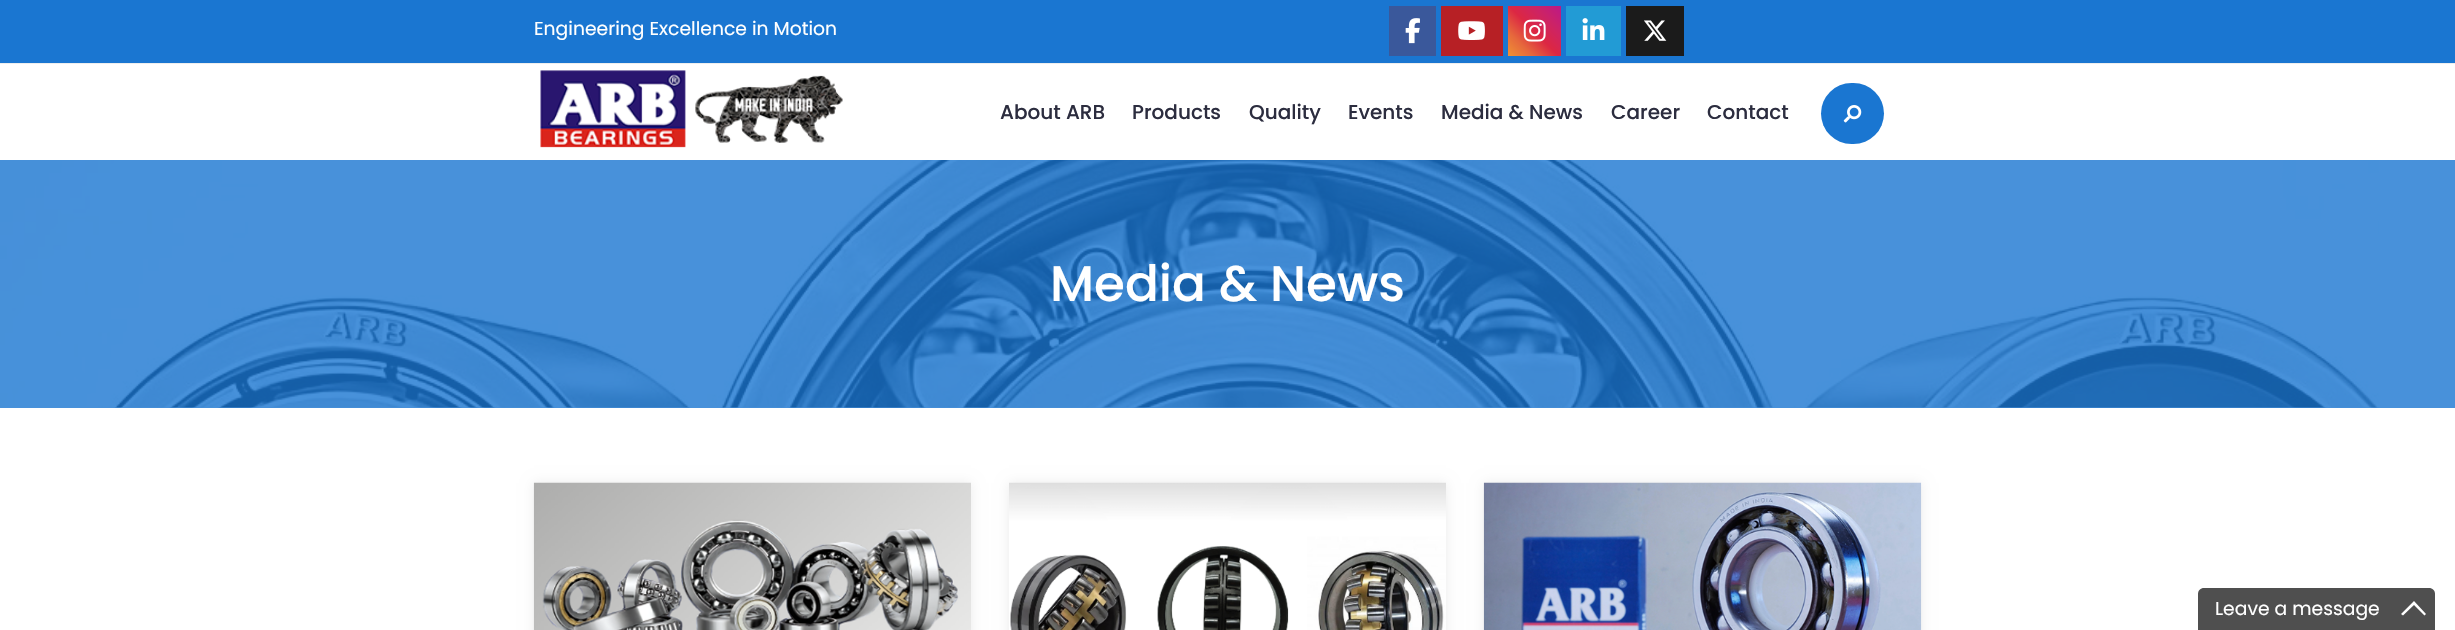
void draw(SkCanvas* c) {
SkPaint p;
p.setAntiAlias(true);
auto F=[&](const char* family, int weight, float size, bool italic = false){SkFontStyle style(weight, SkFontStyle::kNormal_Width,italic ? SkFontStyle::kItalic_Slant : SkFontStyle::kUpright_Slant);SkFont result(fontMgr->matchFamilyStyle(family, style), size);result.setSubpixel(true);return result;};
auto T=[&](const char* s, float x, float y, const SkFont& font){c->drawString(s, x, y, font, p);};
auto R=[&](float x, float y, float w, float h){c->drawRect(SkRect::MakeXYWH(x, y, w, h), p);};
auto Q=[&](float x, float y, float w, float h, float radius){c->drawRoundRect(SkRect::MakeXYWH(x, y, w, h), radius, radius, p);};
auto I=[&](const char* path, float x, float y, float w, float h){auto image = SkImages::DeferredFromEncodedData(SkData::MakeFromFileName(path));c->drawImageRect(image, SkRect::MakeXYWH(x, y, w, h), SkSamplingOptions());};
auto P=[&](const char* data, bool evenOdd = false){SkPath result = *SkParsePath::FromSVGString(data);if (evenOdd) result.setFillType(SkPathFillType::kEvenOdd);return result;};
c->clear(0xffffffff);
p.setColor(0xff4891da);
R(0,160,2455,248);
p.setColor(0xff1a76d1);
R(0,0,2455,63);
p.setColor(0xffeeeeee);
R(0,63,2455,1);
auto f1 = F("Poppins",400,18.75);
p.setColor(0xffffffff);
T("Engineering Excellence in Motion",534,35,f1);
p.setColor(0xff3a589b);
R(1389,6,47,50);
I("1.png",1405,18,15,26);
p.setColor(0xffb72025);
R(1441,6,62,50);
I("2.png",1458,21,27,19);
{
const SkColor colors[] = {0xfff09433,0xffe6683c,0xffdc2743,0xffcc2366,0xffbc1888};
const float stops[] = {0,.25,.5,.75,1};
const SkPoint ends[] = {{1508,57}, {1560,5.3}};
p.setShader(SkGradientShader::MakeLinear(ends, colors, stops, 5, SkTileMode::kClamp));
p.setAlpha(255);
}
R(1508,6,53,50);
I("3.png",1523,19,23,23);
p.setShader(nullptr);
p.setColor(0xff229bd5);
R(1566,6,55,50);
I("4.png",1582,18,23,22);
p.setColor(0xff1b1b1b);
R(1626,6,58,50);
I("5.png",1644,20,23,21);
I("6.png",540,70,303,78);
auto f2 = F("Poppins",500,20);
p.setColor(0xff2c2d3f);
T("About ARB",1000,119,f2);
T("Products",1132,119,f2);
T("Quality",1249,119,f2);
T("Events",1348,119,f2);
T("Media & News",1441,119,f2);
T("Career",1611,119,f2);
T("Contact",1707,119,f2);
p.setColor(0xff1a76d1);
Q(1821,83,63,61,30.5);
I("7.png",1843,105,19,18);
I("8.png",0,160,2379,248);
auto f3 = F("Poppins",500,50);
p.setColor(0xffffffff);
T("Media & News",1050,301,f3);
p.setColor(0x14000000);
p.setMaskFilter(SkMaskFilter::MakeBlur(kNormal_SkBlurStyle, 6));
c->drawRect(SkRect::MakeXYWH(534,483,437,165),p);
p.setMaskFilter(nullptr);
I("9.png",533,482,438,148);
p.setMaskFilter(SkMaskFilter::MakeBlur(kNormal_SkBlurStyle, 6));
c->drawRect(SkRect::MakeXYWH(1009,483,437,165),p);
p.setMaskFilter(nullptr);
I("10.png",1009,482,437,148);
p.setMaskFilter(SkMaskFilter::MakeBlur(kNormal_SkBlurStyle, 6));
c->drawRect(SkRect::MakeXYWH(1484,483,437,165),p);
p.setMaskFilter(nullptr);
I("11.png",1483,482,439,148);
p.setColor(0xff4f4f4f);
c->drawPath(P("M2204 588h225c3.5 0 6 2.5 6 6v36h-237v-36c0-3.5 2.5-6 6-6z"),p);
p.setColor(0xffffffff);
T("Leave a message",2215,615,f1);
c->drawPath(P("M2414 601l12 13l-1.5 1.5l-10.5-10.5l-11 10.5l-2-1.5z"),p);
}
